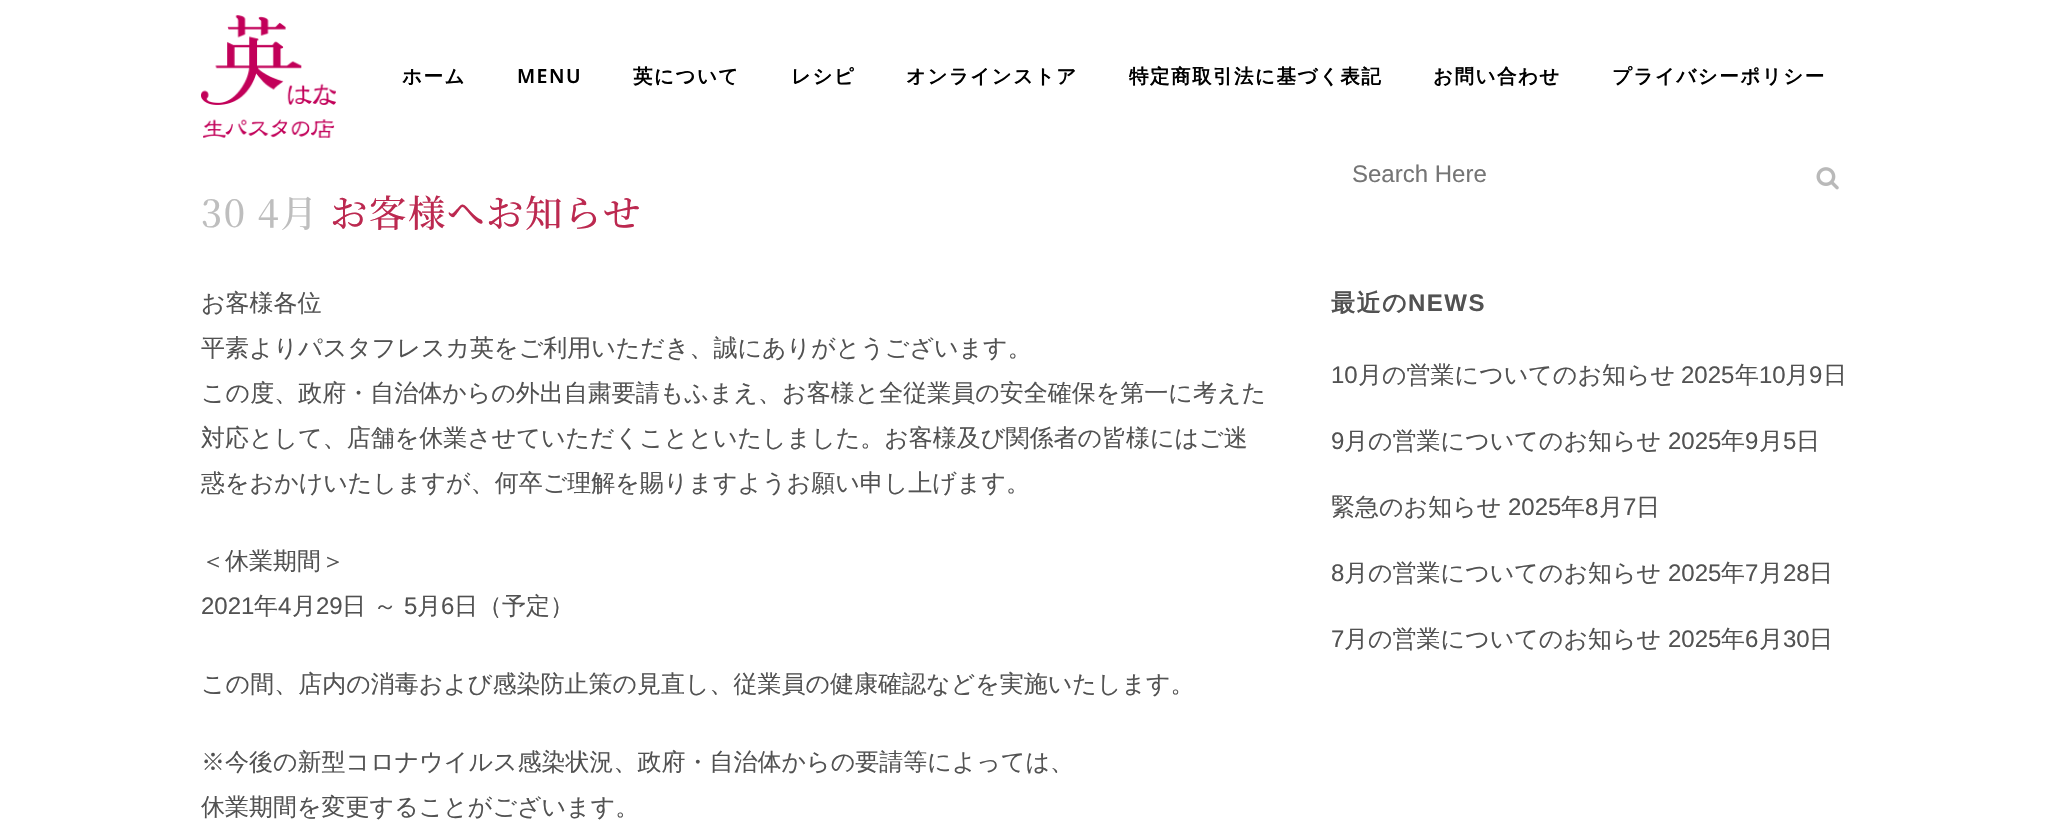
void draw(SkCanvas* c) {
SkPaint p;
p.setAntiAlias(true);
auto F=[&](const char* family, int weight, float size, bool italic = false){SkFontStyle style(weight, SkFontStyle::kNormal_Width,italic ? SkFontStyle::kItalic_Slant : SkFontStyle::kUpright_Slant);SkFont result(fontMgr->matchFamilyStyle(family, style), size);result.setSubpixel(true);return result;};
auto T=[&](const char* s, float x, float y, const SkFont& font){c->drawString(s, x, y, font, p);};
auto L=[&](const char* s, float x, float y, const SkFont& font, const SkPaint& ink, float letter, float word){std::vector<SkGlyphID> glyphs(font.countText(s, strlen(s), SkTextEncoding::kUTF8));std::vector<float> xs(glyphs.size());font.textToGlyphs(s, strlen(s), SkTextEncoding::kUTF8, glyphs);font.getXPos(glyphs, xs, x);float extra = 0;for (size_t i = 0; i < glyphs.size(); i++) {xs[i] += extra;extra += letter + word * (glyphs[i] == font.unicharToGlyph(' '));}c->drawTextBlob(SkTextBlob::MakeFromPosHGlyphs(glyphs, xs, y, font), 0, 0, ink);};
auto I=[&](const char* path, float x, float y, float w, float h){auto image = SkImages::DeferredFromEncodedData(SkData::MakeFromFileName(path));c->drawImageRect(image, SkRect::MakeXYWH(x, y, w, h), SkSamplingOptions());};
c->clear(0xffffffff);
I("1.png",201,15,135,123);
auto f1 = F("WenQuanYi Zen Hei",700,19.5);
p.setColor(0xff000000);
L("ホーム",402,83,f1,p,1.5,0);
auto f2 = F("Noto Sans",600,19.5);
L("MENU",517,83,f2,p,1.5,0);
L("英について",633,83,f1,p,1.5,0);
L("レシピ",791,83,f1,p,1.5,0);
L("オンラインストア",906,83,f1,p,1.5,0);
L("特定商取引法に基づく表記",1129,83,f1,p,1.5,0);
L("お問い合わせ",1433,83,f1,p,1.5,0);
L("プライバシーポリシー",1612,83,f1,p,1.5,0);
auto f3 = F("Noto Serif JP",500,37.5);
p.setColor(0xffbebebe);
L("30 4月",201,227,f3,p,1.5,0);
p.setColor(0xffbc2950);
L("お客様へお知らせ",330,227,f3,p,1.5,0);
auto f4 = F("WenQuanYi Zen Hei",500,24);
p.setColor(0xff525252);
T("お客様各位",201,311,f4);
T("平素よりパスタフレスカ英をご利用いただき、誠にありがとうございます。",201,356,f4);
T("この度、政府・自治体からの外出自粛要請もふまえ、お客様と全従業員の安全確保を第一に考えた",201,401,f4);
T("対応として、店舗を休業させていただくことといたしました。お客様及び関係者の皆様にはご迷",201,446,f4);
T("惑をおかけいたしますが、何卒ご理解を賜りますようお願い申し上げます。",201,491,f4);
T("＜休業期間＞",201,569,f4);
auto f5 = F("Liberation Sans",400,24);
T("2021",201,614,f5);
T("年",254,614,f4);
T("4",278,614,f5);
T("月",292,614,f4);
T("29",316,614,f5);
T("日 ～",342,614,f4);
T("5",404,614,f5);
T("月",417,614,f4);
T("6",441,614,f5);
T("日（予定）",454,614,f4);
T("この間、店内の消毒および感染防止策の見直し、従業員の健康確認などを実施いたします。",201,692,f4);
T("※今後の新型コロナウイルス感染状況、政府・自治体からの要請等によっては、",201,770,f4);
T("休業期間を変更することがございます。",201,815,f4);
p.setColor(0xff757575);
T("Search Here",1352,182,f5);
I("2.png",1816,167,23,23);
auto f6 = F("WenQuanYi Zen Hei",700,24);
p.setColor(0xff525252);
L("最近の",1331,311,f6,p,1.5,0);
auto f7 = F("Liberation Sans",700,24);
L("NEWS",1408,311,f7,p,1.5,0);
T("10",1331,383,f5);
T("月の営業についてのお知らせ",1358,383,f4);
T("2025",1681,383,f5);
T("年",1735,383,f4);
T("10",1759,383,f5);
T("月",1785,383,f4);
T("9",1809,383,f5);
T("日",1823,383,f4);
T("9",1331,449,f5);
T("月の営業についてのお知らせ",1344,449,f4);
T("2025",1668,449,f5);
T("年",1721,449,f4);
T("9",1745,449,f5);
T("月",1759,449,f4);
T("5",1783,449,f5);
T("日",1796,449,f4);
T("緊急のお知らせ",1331,515,f4);
T("2025",1508,515,f5);
T("年",1561,515,f4);
T("8",1585,515,f5);
T("月",1599,515,f4);
T("7",1623,515,f5);
T("日",1636,515,f4);
T("8",1331,581,f5);
T("月の営業についてのお知らせ",1344,581,f4);
T("2025",1668,581,f5);
T("年",1721,581,f4);
T("7",1745,581,f5);
T("月",1759,581,f4);
T("28",1783,581,f5);
T("日",1809,581,f4);
T("7",1331,647,f5);
T("月の営業についてのお知らせ",1344,647,f4);
T("2025",1668,647,f5);
T("年",1721,647,f4);
T("6",1745,647,f5);
T("月",1759,647,f4);
T("30",1783,647,f5);
T("日",1809,647,f4);
}
